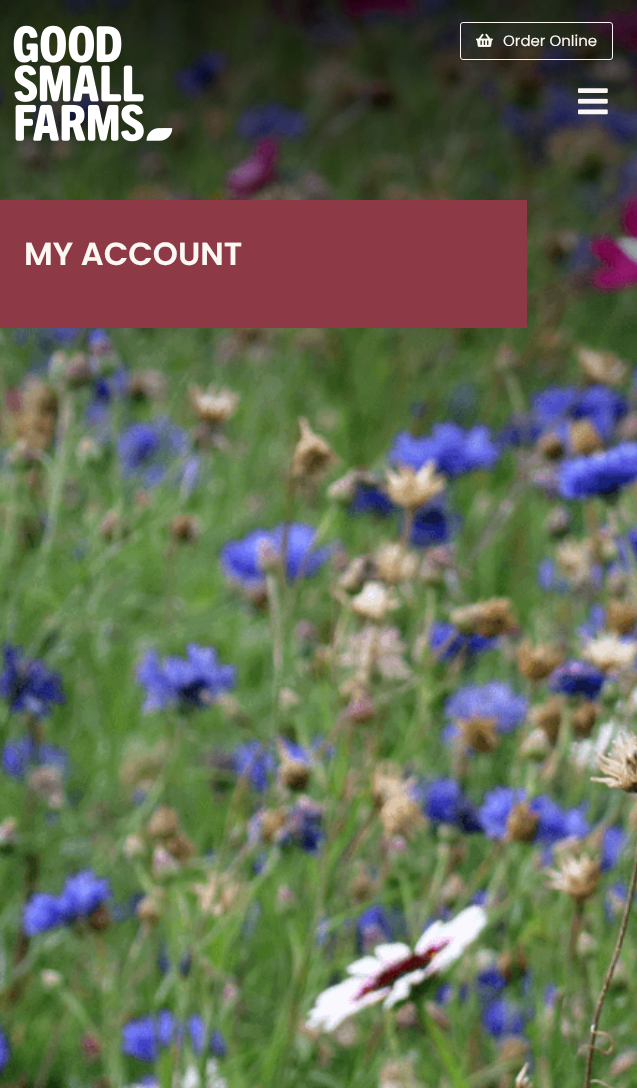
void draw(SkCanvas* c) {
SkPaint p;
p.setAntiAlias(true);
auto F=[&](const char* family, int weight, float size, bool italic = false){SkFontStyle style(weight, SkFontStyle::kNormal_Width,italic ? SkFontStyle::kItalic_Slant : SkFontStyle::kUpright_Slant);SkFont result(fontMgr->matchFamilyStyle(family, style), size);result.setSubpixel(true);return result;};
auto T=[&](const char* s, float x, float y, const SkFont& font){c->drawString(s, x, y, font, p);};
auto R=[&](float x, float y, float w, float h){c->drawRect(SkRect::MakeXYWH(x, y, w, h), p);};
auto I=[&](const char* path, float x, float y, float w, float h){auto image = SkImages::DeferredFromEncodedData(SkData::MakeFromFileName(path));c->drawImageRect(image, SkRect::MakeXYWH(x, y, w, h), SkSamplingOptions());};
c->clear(0xffffffff);
I("1.png",0,0,637,1088);
I("2.png",13,25,160,117);
p.setStroke(true);
p.setStrokeWidth(1);
p.setColor(0xfffbf7f3);
c->drawRoundRect(SkRect::MakeXYWH(460.5,22.5,152,37),2.5,2.5,p);
I("3.png",476,33,17,14);
auto f1 = F("Poppins",400,15);
p.setStroke(false);
T("Order Online",503,46,f1);
I("4.png",578,88,30,27);
p.setColor(0xff8d3a46);
R(0,200,527,128);
auto f2 = F("Poppins",600,32);
p.setColor(0xfffbf7f3);
T("MY ACCOUNT",24,265,f2);
}
